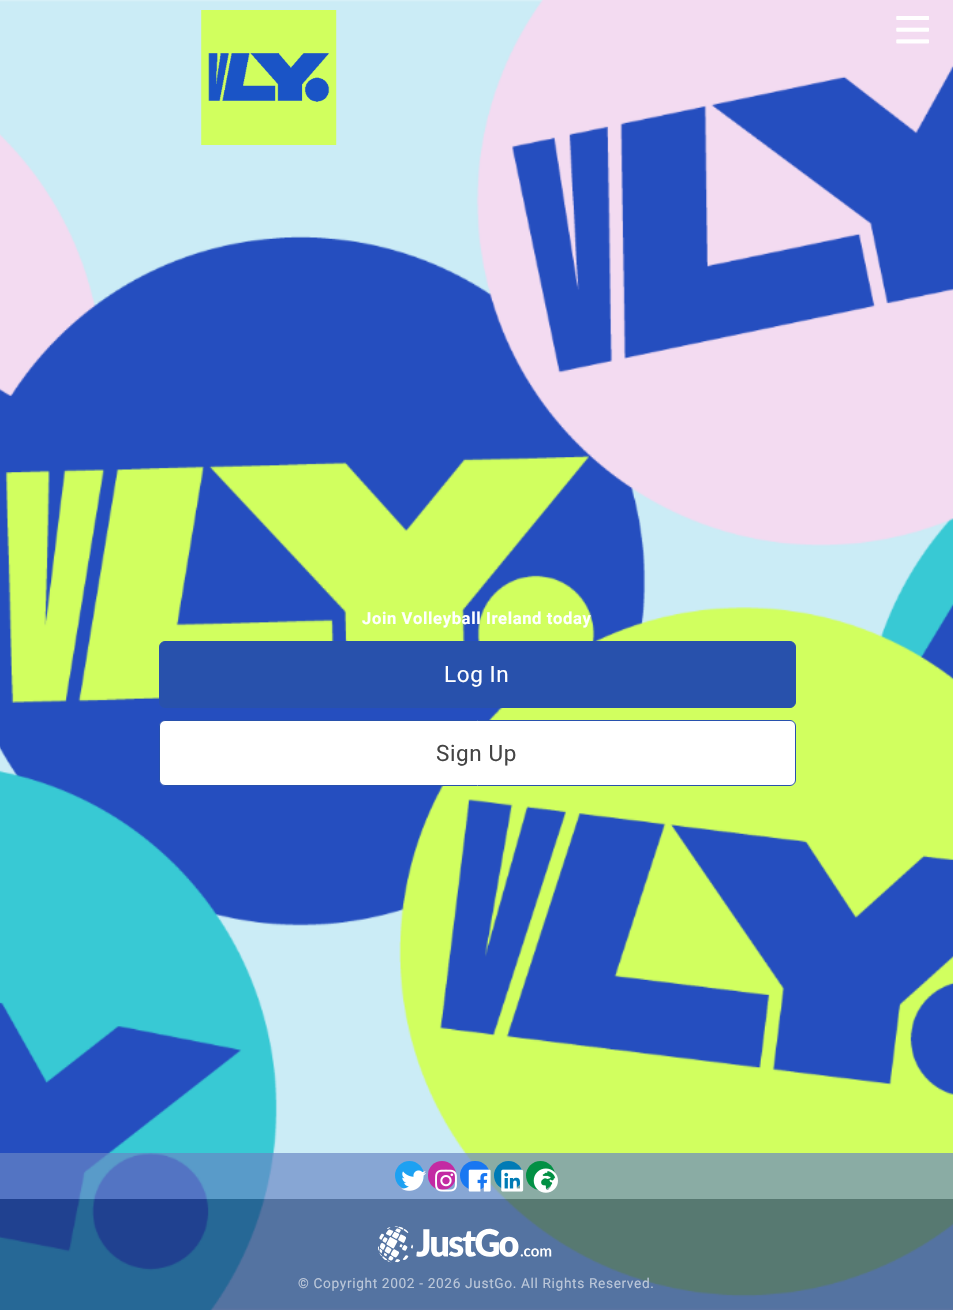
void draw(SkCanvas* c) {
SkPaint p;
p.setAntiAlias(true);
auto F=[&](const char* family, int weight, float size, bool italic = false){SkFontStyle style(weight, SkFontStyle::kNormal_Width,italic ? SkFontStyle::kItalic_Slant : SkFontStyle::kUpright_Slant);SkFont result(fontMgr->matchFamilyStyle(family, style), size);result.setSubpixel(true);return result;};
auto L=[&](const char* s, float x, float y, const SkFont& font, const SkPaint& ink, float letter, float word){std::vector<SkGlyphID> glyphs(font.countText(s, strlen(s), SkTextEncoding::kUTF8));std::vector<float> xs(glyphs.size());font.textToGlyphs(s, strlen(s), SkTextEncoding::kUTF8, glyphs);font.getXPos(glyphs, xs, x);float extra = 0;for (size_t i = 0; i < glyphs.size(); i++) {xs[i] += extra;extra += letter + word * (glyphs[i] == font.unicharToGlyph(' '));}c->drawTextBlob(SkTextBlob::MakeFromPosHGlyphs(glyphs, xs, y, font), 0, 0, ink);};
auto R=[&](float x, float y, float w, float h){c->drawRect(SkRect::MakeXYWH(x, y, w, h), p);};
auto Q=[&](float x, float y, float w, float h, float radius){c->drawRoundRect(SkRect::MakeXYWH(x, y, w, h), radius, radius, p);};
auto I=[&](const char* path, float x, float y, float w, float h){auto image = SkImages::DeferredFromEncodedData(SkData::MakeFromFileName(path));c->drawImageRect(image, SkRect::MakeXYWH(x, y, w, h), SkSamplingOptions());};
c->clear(0xffffffff);
I("3.png",0,0,953,1310);
I("1.png",201,10,136,135);
I("2.png",896,16,33,28);
auto f1 = F("Roboto",700,16.6);
p.setColor(0xffffffff);
L("Join Volleyball Ireland today",362,624,f1,p,.62,0);
p.setColor(0xff2851ac);
c->drawRoundRect(SkRect::MakeXYWH(159.5,641.5,636,66),5.5,5.5,p);
p.setStroke(true);
p.setStrokeWidth(1);
c->drawRoundRect(SkRect::MakeXYWH(159.5,641.5,636,66),5.5,5.5,p);
auto f2 = F("Roboto",400,22.5);
p.setStroke(false);
p.setColor(0xffffffff);
L("Log In",444,682,f2,p,.62,0);
c->drawRoundRect(SkRect::MakeXYWH(159.5,720.5,636,65),5.5,5.5,p);
p.setStroke(true);
p.setColor(0xff2851ac);
c->drawRoundRect(SkRect::MakeXYWH(159.5,720.5,636,65),5.5,5.5,p);
p.setStroke(false);
p.setColor(0xff444444);
L("Sign Up",436,761,f2,p,.62,0);
p.setColor(0x992851ac);
R(0,1153,953,157);
p.setColor(0x33ffffff);
R(0,1153,953,46);
p.setColor(0xff1da1f2);
c->drawCircle(409.5,1175.5,14.5,p);
I("4.png",401,1170,25,21);
p.setColor(0xffc32aa3);
Q(428,1161,28,29,14);
I("5.png",435,1169,22,23);
p.setColor(0xff1877f2);
Q(460,1161,30,29,14.5);
I("6.png",468,1169,23,23);
p.setColor(0xff007bb5);
c->drawCircle(508.5,1175.5,14.5,p);
I("7.png",501,1169,23,23);
p.setColor(0xff029044);
c->drawCircle(540.5,1175.5,14.5,p);
I("8.png",533,1168,25,25);
p.setColor(0x33000000);
R(0,1199,953,111);
I("9.png",378,1226,174,37);
auto f3 = F("Roboto",400,13.75);
p.setColor(0xffbbc7d9);
L("© Copyright 2002 - 2026 JustGo. All Rights Reserved.",298,1288,f3,p,.62,0);
}
